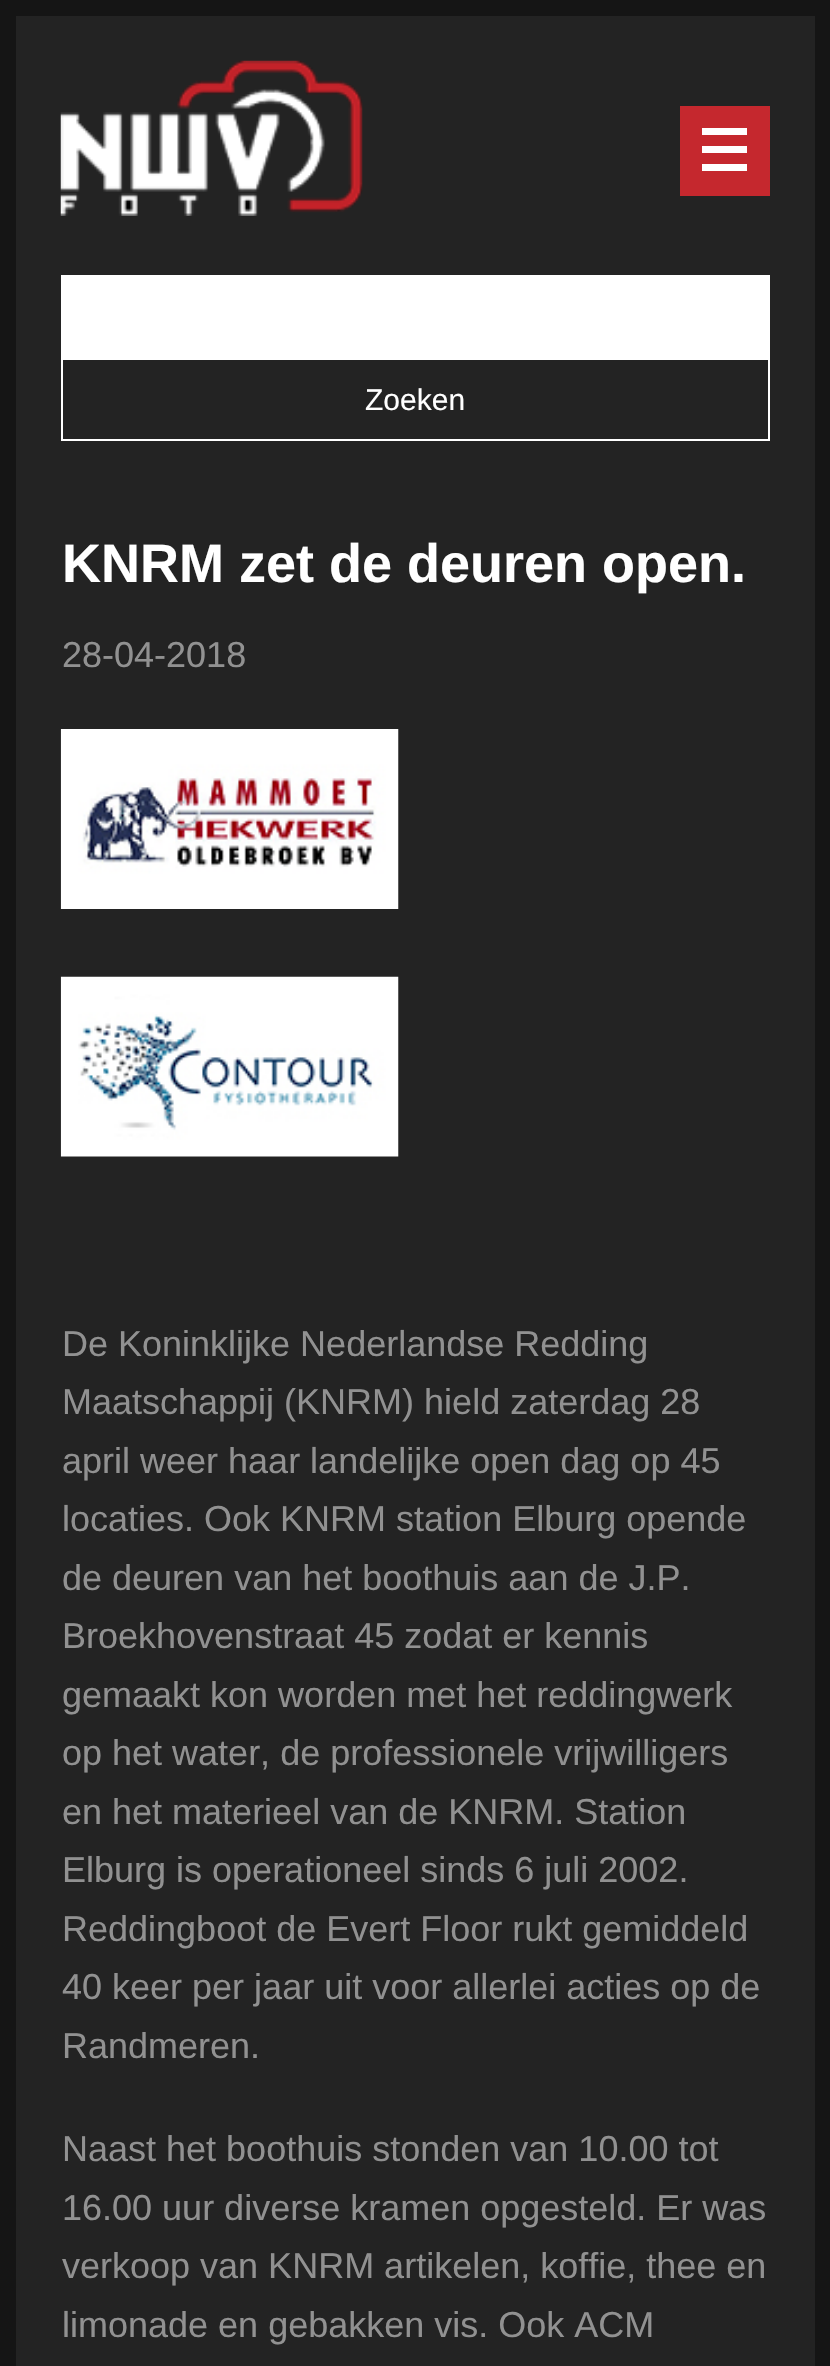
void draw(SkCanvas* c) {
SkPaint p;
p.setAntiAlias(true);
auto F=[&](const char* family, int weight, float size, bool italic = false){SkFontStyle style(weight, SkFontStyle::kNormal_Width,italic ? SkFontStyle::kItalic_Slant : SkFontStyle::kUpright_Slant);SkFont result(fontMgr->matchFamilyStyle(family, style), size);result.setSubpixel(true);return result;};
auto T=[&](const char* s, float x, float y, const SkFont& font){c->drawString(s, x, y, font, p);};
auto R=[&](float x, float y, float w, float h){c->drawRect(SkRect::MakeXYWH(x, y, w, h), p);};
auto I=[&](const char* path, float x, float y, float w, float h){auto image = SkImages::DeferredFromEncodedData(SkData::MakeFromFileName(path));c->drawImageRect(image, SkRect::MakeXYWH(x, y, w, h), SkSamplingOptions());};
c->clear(0xff151515);
p.setColor(0xff232323);
R(16,16,799,2350);
I("1.png",60,60,303,156);
p.setColor(0xffc5282e);
R(680,106,90,90);
p.setColor(0xffffffff);
R(702,128,45,7);
R(702,146,45,7);
R(702,164,45,7);
R(61,275,709,83);
p.setStroke(true);
p.setStrokeWidth(2);
c->drawRect(SkRect::MakeXYWH(62,359,707,81),p);
auto f1 = F("Liberation Sans",400,30);
p.setStroke(false);
T("Zoeken",365,410,f1);
auto f2 = F("Arimo",700,54);
T("KNRM zet de deuren open.",62,582,f2);
auto f3 = F("Arimo",400,36);
p.setColor(0xff919191);
T("28-04-2018",62,667,f3);
I("2.png",60,729,339,180);
I("3.png",60,976,339,181);
T("De Koninklijke Nederlandse Redding",62,1356,f3);
T("Maatschappij (KNRM) hield zaterdag 28",62,1414,f3);
T("april weer haar landelijke open dag op 45",62,1473,f3);
T("locaties. Ook KNRM station Elburg opende",62,1531,f3);
T("de deuren van het boothuis aan de J.P.",62,1590,f3);
T("Broekhovenstraat 45 zodat er kennis",62,1648,f3);
T("gemaakt kon worden met het reddingwerk",62,1707,f3);
T("op het water, de professionele vrijwilligers",62,1765,f3);
T("en het materieel van de KNRM. Station",62,1824,f3);
T("Elburg is operationeel sinds 6 juli 2002.",62,1882,f3);
T("Reddingboot de Evert Floor rukt gemiddeld",62,1941,f3);
T("40 keer per jaar uit voor allerlei acties op de",62,1999,f3);
T("Randmeren.",62,2058,f3);
T("Naast het boothuis stonden van 10.00 tot",62,2161,f3);
T("16.00 uur diverse kramen opgesteld. Er was",62,2220,f3);
T("verkoop van KNRM artikelen, koffie, thee en",62,2278,f3);
T("limonade en gebakken vis. Ook ACM",62,2337,f3);
}
